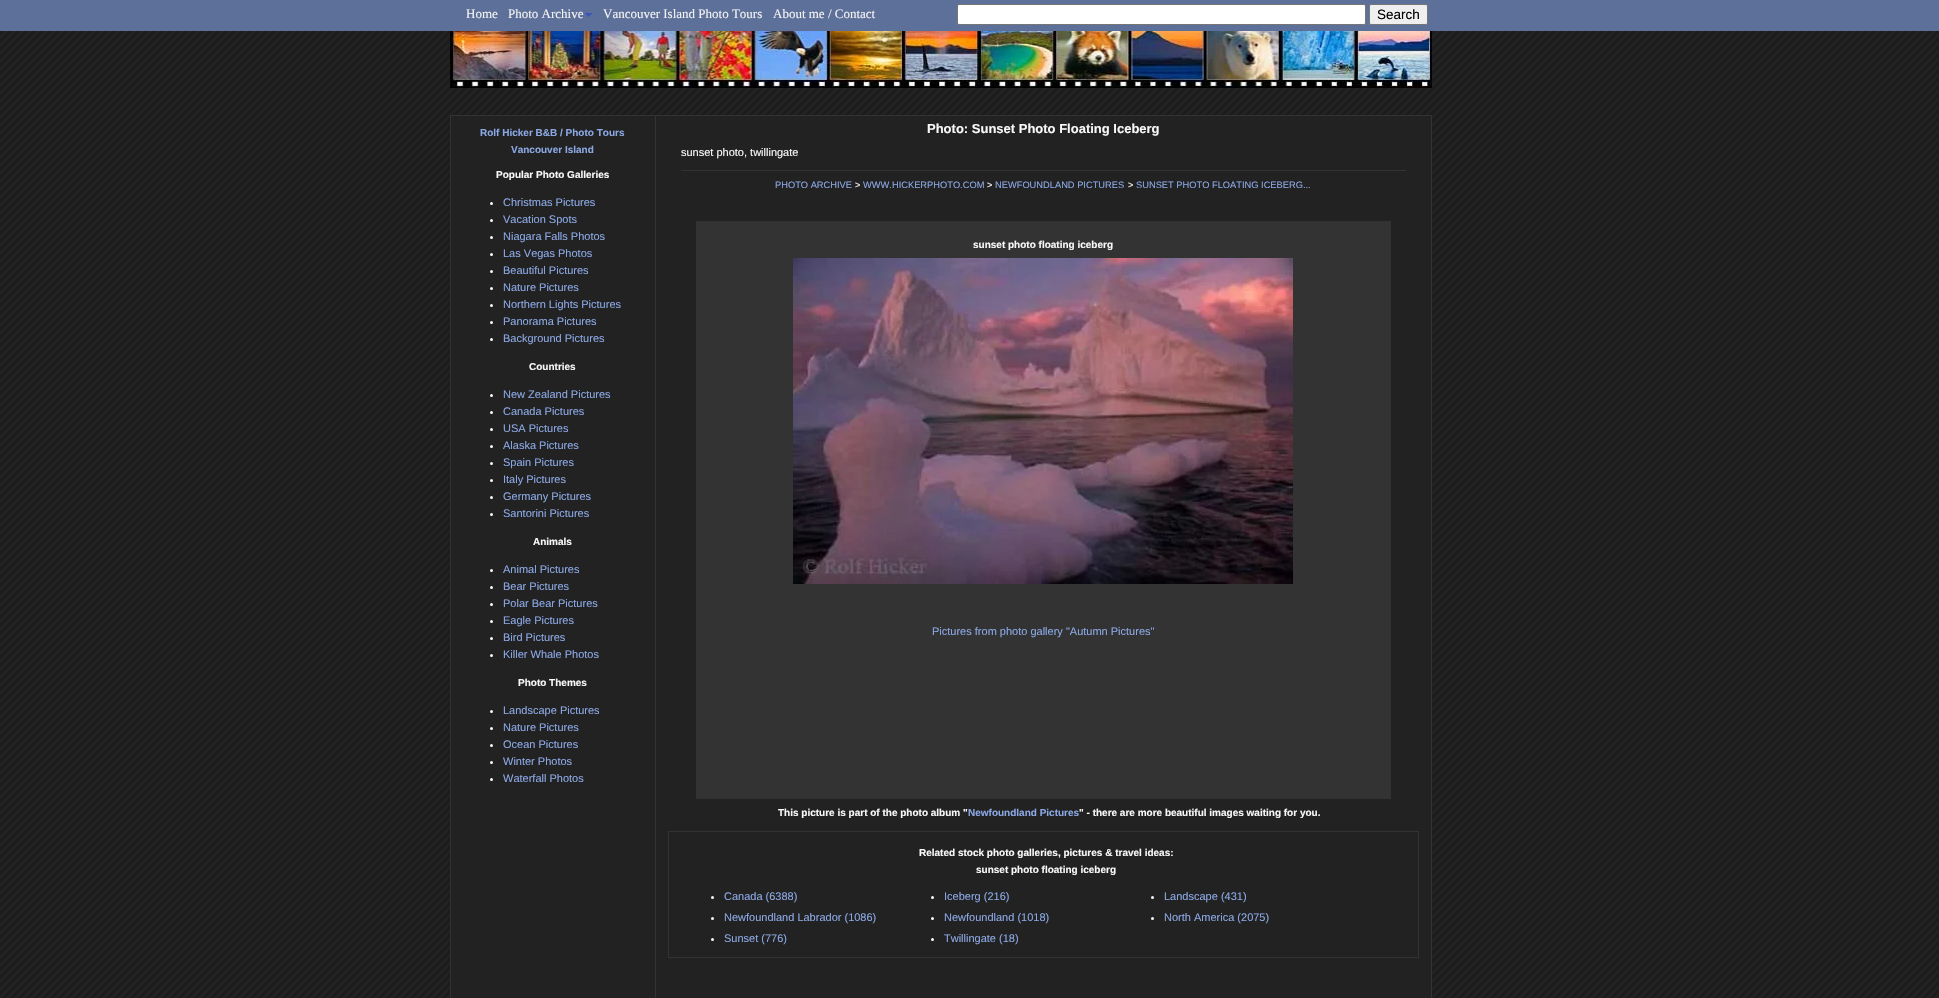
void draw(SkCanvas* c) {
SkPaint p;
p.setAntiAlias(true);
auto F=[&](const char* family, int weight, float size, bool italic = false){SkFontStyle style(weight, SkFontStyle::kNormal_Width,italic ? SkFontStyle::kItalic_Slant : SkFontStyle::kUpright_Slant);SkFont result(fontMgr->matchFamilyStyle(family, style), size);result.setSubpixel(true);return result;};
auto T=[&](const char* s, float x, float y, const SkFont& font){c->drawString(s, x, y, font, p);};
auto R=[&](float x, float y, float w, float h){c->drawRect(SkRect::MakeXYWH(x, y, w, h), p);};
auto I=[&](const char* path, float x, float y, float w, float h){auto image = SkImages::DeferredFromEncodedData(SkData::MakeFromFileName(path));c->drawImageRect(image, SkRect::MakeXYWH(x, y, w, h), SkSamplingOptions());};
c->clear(0xffffffff);
I("1.png",0,31,1939,967);
p.setColor(0xff5d7099);
R(0,0,1939,31);
auto f1 = F("Liberation Serif",400,13);
p.setColor(0xfff2f2f2);
T("Home",466,18,f1);
I("2.png",585,13,7,4);
T("Photo Archive",508,18,f1);
T("Vancouver Island Photo Tours",603,18,f1);
T("About me / Contact",773,18,f1);
p.setColor(0xffffffff);
c->drawRoundRect(SkRect::MakeXYWH(957.5,4.5,408,20),1.5,1.5,p);
p.setStroke(true);
p.setStrokeWidth(1);
p.setColor(0xff767676);
c->drawRoundRect(SkRect::MakeXYWH(957.5,4.5,408,20),1.5,1.5,p);
p.setStroke(false);
p.setColor(0xffefefef);
c->drawRoundRect(SkRect::MakeXYWH(1369.5,4.5,58,20),1.5,1.5,p);
p.setStroke(true);
p.setColor(0xff767676);
c->drawRoundRect(SkRect::MakeXYWH(1369.5,4.5,58,20),1.5,1.5,p);
auto f2 = F("Liberation Sans",400,13.5);
p.setStroke(false);
p.setColor(0xff000000);
T("Search",1377,19,f2);
I("3.png",450,31,982,57);
p.setColor(0xff222222);
c->drawRect(SkRect::MakeXYWH(450.5,115.5,981,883),p);
p.setStroke(true);
p.setColor(0xff333333);
c->drawRect(SkRect::MakeXYWH(450.5,115.5,981,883),p);
auto f3 = F("Liberation Sans",700,10);
p.setStroke(false);
p.setColor(0xff8ba8e5);
T("Rolf Hicker B&B / Photo Tours",480,136,f3);
T("Vancouver Island",511,153,f3);
p.setColor(0xfff8f8f8);
T("Popular Photo Galleries",496,178,f3);
c->drawCircle(491.5,203.5,1.5,p);
auto f4 = F("Liberation Sans",400,11);
p.setColor(0xff8ba8e5);
T("Christmas Pictures",503,206,f4);
p.setColor(0xfff8f8f8);
c->drawCircle(491.5,220.5,1.5,p);
p.setColor(0xff8ba8e5);
T("Vacation Spots",503,223,f4);
p.setColor(0xfff8f8f8);
c->drawCircle(491.5,237.5,1.5,p);
p.setColor(0xff8ba8e5);
T("Niagara Falls Photos",503,240,f4);
p.setColor(0xfff8f8f8);
c->drawCircle(491.5,254.5,1.5,p);
p.setColor(0xff8ba8e5);
T("Las Vegas Photos",503,257,f4);
p.setColor(0xfff8f8f8);
c->drawCircle(491.5,271.5,1.5,p);
p.setColor(0xff8ba8e5);
T("Beautiful Pictures",503,274,f4);
p.setColor(0xfff8f8f8);
c->drawCircle(491.5,288.5,1.5,p);
p.setColor(0xff8ba8e5);
T("Nature Pictures",503,291,f4);
p.setColor(0xfff8f8f8);
c->drawCircle(491.5,305.5,1.5,p);
p.setColor(0xff8ba8e5);
T("Northern Lights Pictures",503,308,f4);
p.setColor(0xfff8f8f8);
c->drawCircle(491.5,322.5,1.5,p);
p.setColor(0xff8ba8e5);
T("Panorama Pictures",503,325,f4);
p.setColor(0xfff8f8f8);
c->drawCircle(491.5,339.5,1.5,p);
p.setColor(0xff8ba8e5);
T("Background Pictures",503,342,f4);
p.setColor(0xfff8f8f8);
T("Countries",529,370,f3);
c->drawCircle(491.5,395.5,1.5,p);
p.setColor(0xff8ba8e5);
T("New Zealand Pictures",503,398,f4);
p.setColor(0xfff8f8f8);
c->drawCircle(491.5,412.5,1.5,p);
p.setColor(0xff8ba8e5);
T("Canada Pictures",503,415,f4);
p.setColor(0xfff8f8f8);
c->drawCircle(491.5,429.5,1.5,p);
p.setColor(0xff8ba8e5);
T("USA Pictures",503,432,f4);
p.setColor(0xfff8f8f8);
c->drawCircle(491.5,446.5,1.5,p);
p.setColor(0xff8ba8e5);
T("Alaska Pictures",503,449,f4);
p.setColor(0xfff8f8f8);
c->drawCircle(491.5,463.5,1.5,p);
p.setColor(0xff8ba8e5);
T("Spain Pictures",503,466,f4);
p.setColor(0xfff8f8f8);
c->drawCircle(491.5,480.5,1.5,p);
p.setColor(0xff8ba8e5);
T("Italy Pictures",503,483,f4);
p.setColor(0xfff8f8f8);
c->drawCircle(491.5,497.5,1.5,p);
p.setColor(0xff8ba8e5);
T("Germany Pictures",503,500,f4);
p.setColor(0xfff8f8f8);
c->drawCircle(491.5,514.5,1.5,p);
p.setColor(0xff8ba8e5);
T("Santorini Pictures",503,517,f4);
p.setColor(0xfff8f8f8);
T("Animals",533,545,f3);
c->drawCircle(491.5,570.5,1.5,p);
p.setColor(0xff8ba8e5);
T("Animal Pictures",503,573,f4);
p.setColor(0xfff8f8f8);
c->drawCircle(491.5,587.5,1.5,p);
p.setColor(0xff8ba8e5);
T("Bear Pictures",503,590,f4);
p.setColor(0xfff8f8f8);
c->drawCircle(491.5,604.5,1.5,p);
p.setColor(0xff8ba8e5);
T("Polar Bear Pictures",503,607,f4);
p.setColor(0xfff8f8f8);
c->drawCircle(491.5,621.5,1.5,p);
p.setColor(0xff8ba8e5);
T("Eagle Pictures",503,624,f4);
p.setColor(0xfff8f8f8);
c->drawCircle(491.5,638.5,1.5,p);
p.setColor(0xff8ba8e5);
T("Bird Pictures",503,641,f4);
p.setColor(0xfff8f8f8);
c->drawCircle(491.5,655.5,1.5,p);
p.setColor(0xff8ba8e5);
T("Killer Whale Photos",503,658,f4);
p.setColor(0xfff8f8f8);
T("Photo Themes",518,686,f3);
c->drawCircle(491.5,711.5,1.5,p);
p.setColor(0xff8ba8e5);
T("Landscape Pictures",503,714,f4);
p.setColor(0xfff8f8f8);
c->drawCircle(491.5,728.5,1.5,p);
p.setColor(0xff8ba8e5);
T("Nature Pictures",503,731,f4);
p.setColor(0xfff8f8f8);
c->drawCircle(491.5,745.5,1.5,p);
p.setColor(0xff8ba8e5);
T("Ocean Pictures",503,748,f4);
p.setColor(0xfff8f8f8);
c->drawCircle(491.5,762.5,1.5,p);
p.setColor(0xff8ba8e5);
T("Winter Photos",503,765,f4);
p.setColor(0xfff8f8f8);
c->drawCircle(491.5,779.5,1.5,p);
p.setColor(0xff8ba8e5);
T("Waterfall Photos",503,782,f4);
p.setColor(0xff333333);
R(655,116,1,882);
auto f5 = F("Liberation Sans",700,13);
p.setColor(0xfff8f8f8);
T("Photo: Sunset Photo Floating Iceberg",927,133,f5);
T("sunset photo, twillingate",681,156,f4);
p.setColor(0xff333333);
R(681,170,725,1);
auto f6 = F("Liberation Sans",400,9.3);
p.setColor(0xff8ba8e5);
T("PHOTO ARCHIVE",775,188,f6);
p.setColor(0xfff8f8f8);
T(">",855,188,f6);
p.setColor(0xff8ba8e5);
T("WWW.HICKERPHOTO.COM",863,188,f6);
p.setColor(0xfff8f8f8);
T(">",987,188,f6);
p.setColor(0xff8ba8e5);
T("NEWFOUNDLAND PICTURES",995,188,f6);
p.setColor(0xfff8f8f8);
T(">",1128,188,f6);
p.setColor(0xff8ba8e5);
T("SUNSET PHOTO FLOATING ICEBERG...",1136,188,f6);
p.setColor(0xff333333);
R(696,221,695,578);
p.setColor(0xfff8f8f8);
T("sunset photo floating iceberg",973,248,f3);
I("4.png",793,258,500,326);
p.setColor(0xff8ba8e5);
T("Pictures from photo gallery \"Autumn Pictures\"",932,635,f4);
p.setColor(0xfff8f8f8);
T("This picture is part of the photo album \"",778,816,f3);
p.setColor(0xff8ba8e5);
T("Newfoundland Pictures",968,816,f3);
p.setColor(0xfff8f8f8);
T("\" - there are more beautiful images waiting for you.",1079,816,f3);
p.setStroke(true);
p.setColor(0xff333333);
c->drawRect(SkRect::MakeXYWH(668.5,831.5,750,126),p);
p.setStroke(false);
p.setColor(0xfff8f8f8);
T("Related stock photo galleries, pictures & travel ideas:",919,856,f3);
T("sunset photo floating iceberg",976,873,f3);
c->drawCircle(712.5,897.5,1.5,p);
p.setColor(0xff8ba8e5);
T("Canada (6388)",724,900,f4);
p.setColor(0xfff8f8f8);
c->drawCircle(932.5,897.5,1.5,p);
p.setColor(0xff8ba8e5);
T("Iceberg (216)",944,900,f4);
p.setColor(0xfff8f8f8);
c->drawCircle(1152.5,897.5,1.5,p);
p.setColor(0xff8ba8e5);
T("Landscape (431)",1164,900,f4);
p.setColor(0xfff8f8f8);
c->drawCircle(712.5,918.5,1.5,p);
p.setColor(0xff8ba8e5);
T("Newfoundland Labrador (1086)",724,921,f4);
p.setColor(0xfff8f8f8);
c->drawCircle(932.5,918.5,1.5,p);
p.setColor(0xff8ba8e5);
T("Newfoundland (1018)",944,921,f4);
p.setColor(0xfff8f8f8);
c->drawCircle(1152.5,918.5,1.5,p);
p.setColor(0xff8ba8e5);
T("North America (2075)",1164,921,f4);
p.setColor(0xfff8f8f8);
c->drawCircle(712.5,939.5,1.5,p);
p.setColor(0xff8ba8e5);
T("Sunset (776)",724,942,f4);
p.setColor(0xfff8f8f8);
c->drawCircle(932.5,939.5,1.5,p);
p.setColor(0xff8ba8e5);
T("Twillingate (18)",944,942,f4);
}
